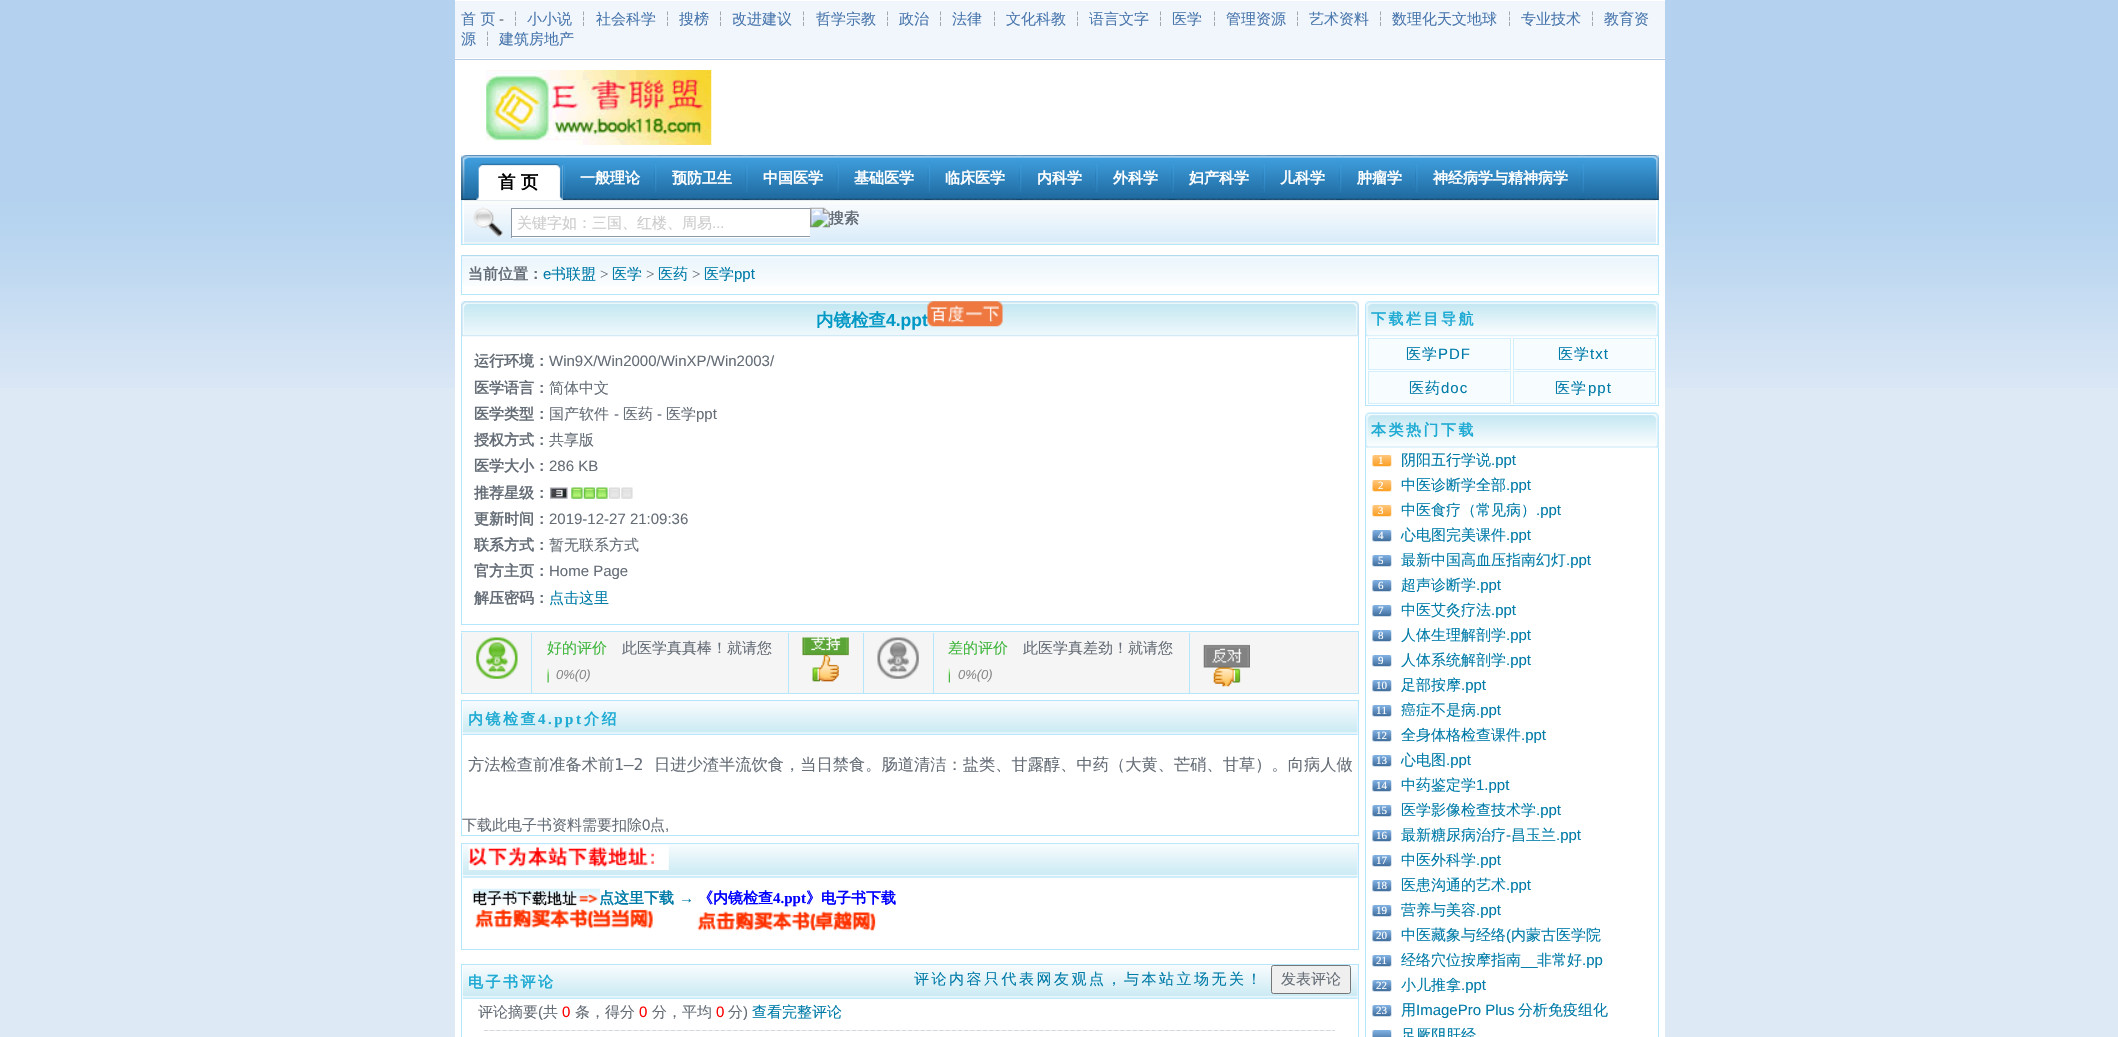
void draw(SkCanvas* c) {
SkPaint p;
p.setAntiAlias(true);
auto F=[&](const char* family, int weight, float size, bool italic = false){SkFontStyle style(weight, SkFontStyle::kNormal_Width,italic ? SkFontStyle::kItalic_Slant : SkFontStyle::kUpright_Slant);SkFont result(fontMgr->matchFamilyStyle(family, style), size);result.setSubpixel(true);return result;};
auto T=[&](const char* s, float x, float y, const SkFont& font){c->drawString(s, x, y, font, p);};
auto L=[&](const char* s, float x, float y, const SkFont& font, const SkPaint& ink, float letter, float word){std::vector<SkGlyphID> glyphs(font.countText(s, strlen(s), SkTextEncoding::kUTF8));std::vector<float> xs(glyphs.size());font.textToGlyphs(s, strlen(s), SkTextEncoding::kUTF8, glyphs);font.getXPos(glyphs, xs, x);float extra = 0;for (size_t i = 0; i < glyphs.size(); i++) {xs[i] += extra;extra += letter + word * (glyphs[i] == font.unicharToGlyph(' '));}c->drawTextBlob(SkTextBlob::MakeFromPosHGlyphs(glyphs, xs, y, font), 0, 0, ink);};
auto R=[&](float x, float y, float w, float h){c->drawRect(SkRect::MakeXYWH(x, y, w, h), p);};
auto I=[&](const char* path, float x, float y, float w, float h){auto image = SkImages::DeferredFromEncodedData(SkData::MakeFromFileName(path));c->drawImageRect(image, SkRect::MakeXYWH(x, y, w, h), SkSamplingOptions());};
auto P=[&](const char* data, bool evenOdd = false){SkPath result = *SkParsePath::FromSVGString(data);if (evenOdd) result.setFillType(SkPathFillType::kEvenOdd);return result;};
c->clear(0xffdee9f6);
I("1.png",0,0,2118,388);
p.setColor(0xfff1f6fc);
R(455,1,1210,57);
p.setColor(0xffffffff);
R(455,0,1210,1);
R(455,58,1210,1);
auto f1 = F("WenQuanYi Zen Hei",500,15);
p.setColor(0xff4976ad);
T("首 页",461,24,f1);
auto f2 = F("Liberation Sans",400,15);
p.setColor(0xff656d77);
T("-",499,24,f2);
T("┆",508,24,f1);
p.setColor(0xff4976ad);
T("小小说",527,24,f1);
p.setColor(0xff656d77);
T("┆",576,24,f1);
p.setColor(0xff4976ad);
T("社会科学",596,24,f1);
p.setColor(0xff656d77);
T("┆",660,24,f1);
p.setColor(0xff4976ad);
T("搜榜",679,24,f1);
p.setColor(0xff656d77);
T("┆",713,24,f1);
p.setColor(0xff4976ad);
T("改进建议",732,24,f1);
p.setColor(0xff656d77);
T("┆",796,24,f1);
p.setColor(0xff4976ad);
T("哲学宗教",816,24,f1);
p.setColor(0xff656d77);
T("┆",880,24,f1);
p.setColor(0xff4976ad);
T("政治",899,24,f1);
p.setColor(0xff656d77);
T("┆",933,24,f1);
p.setColor(0xff4976ad);
T("法律",952,24,f1);
p.setColor(0xff656d77);
T("┆",987,24,f1);
p.setColor(0xff4976ad);
T("文化科教",1006,24,f1);
p.setColor(0xff656d77);
T("┆",1070,24,f1);
p.setColor(0xff4976ad);
T("语言文字",1089,24,f1);
p.setColor(0xff656d77);
T("┆",1153,24,f1);
p.setColor(0xff4976ad);
T("医学",1172,24,f1);
p.setColor(0xff656d77);
T("┆",1207,24,f1);
p.setColor(0xff4976ad);
T("管理资源",1226,24,f1);
p.setColor(0xff656d77);
T("┆",1290,24,f1);
p.setColor(0xff4976ad);
T("艺术资料",1309,24,f1);
p.setColor(0xff656d77);
T("┆",1373,24,f1);
p.setColor(0xff4976ad);
T("数理化天文地球",1392,24,f1);
p.setColor(0xff656d77);
T("┆",1502,24,f1);
p.setColor(0xff4976ad);
T("专业技术",1521,24,f1);
p.setColor(0xff656d77);
T("┆",1585,24,f1);
p.setColor(0xff4976ad);
T("教育资",1604,24,f1);
T("源",461,44,f1);
p.setColor(0xff656d77);
T("┆",480,44,f1);
p.setColor(0xff4976ad);
T("建筑房地产",499,44,f1);
p.setColor(0xffffffff);
R(455,60,1210,977);
p.setColor(0xffb6cae3);
R(455,59,1210,1);
I("2.png",486,70,226,75);
I("3.png",461,155,1198,45);
I("4.png",461,155,8,45);
I("5.png",1652,155,7,45);
I("6.png",560,155,7,45);
I("7.png",474,163,89,37);
I("8.png",556,163,7,37);
auto f3 = F("WenQuanYi Zen Hei",700,17.5);
p.setColor(0xff000000);
T("首 页",498,188,f3);
I("9.png",651,155,7,45);
auto f4 = F("WenQuanYi Zen Hei",700,15);
p.setColor(0xffffffff);
T("一般理论",580,183,f4);
I("10.png",742,155,7,45);
T("预防卫生",672,183,f4);
I("11.png",834,155,6,45);
T("中国医学",763,183,f4);
I("12.png",925,155,6,45);
T("基础医学",854,183,f4);
I("13.png",1016,155,7,45);
T("临床医学",945,183,f4);
I("14.png",1092,155,7,45);
T("内科学",1037,183,f4);
I("11.png",1169,155,6,45);
T("外科学",1113,183,f4);
I("15.png",1260,155,7,45);
T("妇产科学",1189,183,f4);
I("16.png",1336,155,7,45);
T("儿科学",1280,183,f4);
I("17.png",1412,155,7,45);
T("肿瘤学",1357,183,f4);
I("18.png",1578,155,7,45);
T("神经病学与精神病学",1433,183,f4);
I("19.png",462,200,1196,44);
p.setColor(0xffb6e6fb);
R(1658,200,1,45);
R(461,244,1198,1);
R(461,200,1,45);
p.setColor(0xffffffff);
R(1656,200,1,44);
R(463,200,1,44);
I("20.png",473,207,30,30);
R(512,209,298,29);
p.setColor(0xff8f98a5);
R(511,208,299,1);
R(511,236,299,1);
R(511,208,1,30);
p.setColor(0xffcccccc);
T("关键字如：三国、红楼、周易",517,228,f1);
T("...",712,228,f2);
I("21.png",810,207,49,21);
p.setColor(0xff656d77);
T("搜索",829,223,f1);
I("22.png",462,255,1196,31);
p.setColor(0xffb6e6fb);
R(1658,255,1,40);
R(461,294,1198,1);
R(461,255,1,40);
p.setColor(0xff656d77);
T("当前位置：",468,279,f4);
p.setColor(0xff007ba8);
T("e",543,279,f2);
T("书联盟",551,279,f1);
auto f5 = F("Liberation Serif",400,15);
p.setColor(0xff656d77);
T(">",600,279,f5);
p.setColor(0xff007ba8);
T("医学",612,279,f1);
p.setColor(0xff656d77);
T(">",646,279,f5);
p.setColor(0xff007ba8);
T("医药",658,279,f1);
p.setColor(0xff656d77);
T(">",692,279,f5);
p.setColor(0xff007ba8);
T("医学",704,279,f1);
T("ppt",734,279,f2);
p.setColor(0xffedf6ff);
R(461,301,898,35);
I("23.png",461,301,898,36);
p.setColor(0xff0098c5);
T("内镜检查",816,326,f3);
auto f6 = F("Liberation Sans",700,17.5);
T("4.ppt",886,326,f6);
I("24.png",927,301,76,26);
p.setColor(0xffb6e6fb);
R(1358,336,1,289);
R(461,624,898,1);
R(461,336,1,289);
p.setColor(0xff656d77);
T("运行环境：",474,366,f4);
T("Win9X/Win2000/WinXP/Win2003/",549,366,f2);
T("医学语言：",474,393,f4);
T("简体中文",549,393,f1);
T("医学类型：",474,419,f4);
T("国产软件",549,419,f1);
T("-",614,419,f2);
T("医药",623,419,f1);
T("-",657,419,f2);
T("医学",666,419,f1);
T("ppt",696,419,f2);
T("授权方式：",474,445,f4);
T("共享版",549,445,f1);
T("医学大小：",474,471,f4);
T("286 KB",549,471,f2);
T("推荐星级：",474,498,f4);
I("25.png",550,487,83,12);
T("更新时间：",474,524,f4);
T("2019-12-27 21:09:36",549,524,f2);
T("联系方式：",474,550,f4);
T("暂无联系方式",549,550,f1);
T("官方主页：",474,576,f4);
T("Home Page",549,576,f2);
T("解压密码：",474,603,f4);
p.setColor(0xff007ba8);
T("点击这里",549,603,f1);
p.setColor(0xfff5f5f5);
R(461,632,897,61);
p.setColor(0xffb6e6fb);
R(461,631,898,1);
R(1358,631,1,63);
R(461,693,898,1);
R(461,633,1,61);
I("26.png",476,637,42,42);
R(531,633,1,61);
p.setColor(0xff42b73f);
T("好的评价",547,653,f1);
p.setColor(0xff656d77);
T("此医学真真棒！就请您",622,653,f1);
I("27.png",547,668,2,15);
auto f7 = F("Liberation Sans",400,13,true);
p.setColor(0xff888888);
T("0%(0)",556,679,f7);
p.setColor(0xffb6e6fb);
R(788,633,1,61);
I("28.png",802,637,47,45);
R(863,633,1,61);
I("29.png",877,637,42,42);
R(933,633,1,61);
p.setColor(0xff42b73f);
T("差的评价",948,653,f1);
p.setColor(0xff656d77);
T("此医学真差劲！就请您",1023,653,f1);
I("30.png",948,668,2,15);
p.setColor(0xff888888);
T("0%(0)",958,679,f7);
p.setColor(0xffb6e6fb);
R(1189,633,1,61);
I("31.png",1203,644,47,43);
p.setStroke(true);
p.setStrokeWidth(1);
c->drawRect(SkRect::MakeXYWH(461.5,700.5,897,135),p);
p.setStroke(false);
p.setColor(0xffedf6ff);
R(463,701,895,34);
I("32.png",462,701,896,34);
p.setColor(0xff1fabd3);
L("内镜检查",468,724,f4,p,2.5,0);
auto f8 = F("Liberation Serif",700,15);
L("4.ppt",538,724,f8,p,2.5,0);
L("介绍",584,724,f4,p,2.5,0);
auto f9 = F("WenQuanYi Zen Hei",500,16.25);
p.setColor(0xff656d77);
T("方法检查前准备术前",468,770,f9);
auto f10 = F("DejaVu Sans Mono",400,16.25);
T("1—2",614,770,f10);
T("日进少渣半流饮食，当日禁食。肠道清洁：盐类、甘露醇、中药（大黄、芒硝、甘草）。向病人做",654,770,f9);
T("下载此电子书资料需要扣除",462,830,f1);
T("0",642,830,f2);
T("点",650,830,f1);
T(",",665,830,f2);
p.setStroke(true);
p.setColor(0xffb6e6fb);
c->drawRect(SkRect::MakeXYWH(461.5,843.5,897,106),p);
p.setStroke(false);
p.setColor(0xffedf6ff);
R(463,844,895,34);
I("33.png",462,843,896,35);
I("34.png",468,845,201,25);
I("35.png",472,888,128,18);
p.setColor(0xff007ba8);
T("点这里下载",599,903,f4);
auto f11 = F("Liberation Sans",700,15);
T("→",679,903,f11);
p.setColor(0xff0000ff);
T("《内镜检查",698,903,f4);
T("4.ppt",773,903,f8);
T("》电子书下载",806,903,f4);
I("36.png",474,908,179,21);
I("37.png",697,911,179,21);
p.setStroke(true);
p.setColor(0xffb6e6fb);
c->drawRect(SkRect::MakeXYWH(461.5,964.5,897,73),p);
p.setStroke(false);
p.setColor(0xffedf6ff);
R(463,965,895,34);
I("38.png",462,965,896,34);
p.setColor(0xff1fabd3);
L("电子书评论",468,987,f4,p,2.5,0);
p.setColor(0xff007ba8);
L("评论内容只代表网友观点，与本站立场无关！",914,984,f1,p,2.5,0);
p.setColor(0xffefefef);
c->drawRoundRect(SkRect::MakeXYWH(1271.5,965.5,79,28),2,2,p);
p.setStroke(true);
p.setColor(0xff767676);
c->drawRoundRect(SkRect::MakeXYWH(1271.5,965.5,79,28),2,2,p);
p.setStroke(false);
p.setColor(0xff656d77);
T("发表评论",1281,984,f1);
T("评论摘要",478,1017,f1);
T("(",538,1017,f2);
T("共",543,1017,f1);
p.setColor(0xffff0000);
T("0",562,1017,f2);
p.setColor(0xff656d77);
T("条，得分",575,1017,f1);
p.setColor(0xffff0000);
T("0",639,1017,f2);
p.setColor(0xff656d77);
T("分，平均",652,1017,f1);
p.setColor(0xffff0000);
T("0",716,1017,f2);
p.setColor(0xff656d77);
T("分",728,1017,f1);
T(")",743,1017,f2);
p.setColor(0xff007ba8);
T("查看完整评论",752,1017,f1);
p.setColor(0xffeeeeee);
R(484,1030,851,1);
p.setStroke(true);
p.setStrokeWidth(1.2);
p.setColor(0xffd1d7dc);
p.setPathEffect(SkDashPathEffect::Make({{3.75f,2.49f}}, 0));
c->drawPath(P("M484 1030.5h851"),p);
p.setPathEffect(nullptr);
p.setStroke(false);
p.setColor(0xffedf6ff);
R(1365,301,294,35);
I("39.png",1365,301,294,36);
p.setColor(0xff1fabd3);
L("下载栏目导航",1371,324,f4,p,2.5,0);
p.setColor(0xffb6e6fb);
R(1658,336,1,70);
R(1365,405,294,1);
R(1365,336,1,70);
p.setColor(0xfff7fcff);
c->drawRect(SkRect::MakeXYWH(1368.5,338.5,142,31),p);
p.setStroke(true);
p.setStrokeWidth(1);
p.setColor(0xffd2effb);
c->drawRect(SkRect::MakeXYWH(1368.5,338.5,142,31),p);
p.setStroke(false);
p.setColor(0xff007ba8);
L("医学",1406,359,f1,p,1,0);
L("PDF",1438,359,f2,p,1,0);
p.setColor(0xfff7fcff);
c->drawRect(SkRect::MakeXYWH(1513.5,338.5,142,31),p);
p.setStroke(true);
p.setColor(0xffd2effb);
c->drawRect(SkRect::MakeXYWH(1513.5,338.5,142,31),p);
p.setStroke(false);
p.setColor(0xff007ba8);
L("医学",1558,359,f1,p,1,0);
L("txt",1590,359,f2,p,1,0);
p.setColor(0xfff7fcff);
c->drawRect(SkRect::MakeXYWH(1368.5,371.5,142,32),p);
p.setStroke(true);
p.setColor(0xffd2effb);
c->drawRect(SkRect::MakeXYWH(1368.5,371.5,142,32),p);
p.setStroke(false);
p.setColor(0xff007ba8);
L("医药",1409,393,f1,p,1,0);
L("doc",1441,393,f2,p,1,0);
p.setColor(0xfff7fcff);
c->drawRect(SkRect::MakeXYWH(1513.5,371.5,142,32),p);
p.setStroke(true);
p.setColor(0xffd2effb);
c->drawRect(SkRect::MakeXYWH(1513.5,371.5,142,32),p);
p.setStroke(false);
p.setColor(0xff007ba8);
L("医学",1555,393,f1,p,1,0);
L("ppt",1588,393,f2,p,1,0);
p.setColor(0xffedf6ff);
R(1365,413,294,35);
I("40.png",1365,412,294,36);
p.setColor(0xff1fabd3);
L("本类热门下载",1371,435,f4,p,2.5,0);
p.setColor(0xffb6e6fb);
R(1658,448,1,589);
R(1365,448,1,589);
I("41.png",1372,455,20,12);
auto f12 = F("Liberation Serif",400,11);
p.setColor(0xffffffff);
T("1",1378,464,f12);
p.setColor(0xff007ba8);
T("阴阳五行学说",1401,465,f1);
T(".ppt",1491,465,f2);
I("41.png",1372,480,20,12);
p.setColor(0xffffffff);
T("2",1378,489,f12);
p.setColor(0xff007ba8);
T("中医诊断学全部",1401,490,f1);
T(".ppt",1506,490,f2);
I("41.png",1372,505,20,12);
p.setColor(0xffffffff);
T("3",1378,514,f12);
p.setColor(0xff007ba8);
T("中医食疗（常见病）",1401,515,f1);
T(".ppt",1536,515,f2);
I("42.png",1372,530,20,12);
p.setColor(0xffffffff);
T("4",1378,539,f12);
p.setColor(0xff007ba8);
T("心电图完美课件",1401,540,f1);
T(".ppt",1506,540,f2);
I("42.png",1372,555,20,12);
p.setColor(0xffffffff);
T("5",1378,564,f12);
p.setColor(0xff007ba8);
T("最新中国高血压指南幻灯",1401,565,f1);
T(".ppt",1566,565,f2);
I("42.png",1372,580,20,12);
p.setColor(0xffffffff);
T("6",1378,589,f12);
p.setColor(0xff007ba8);
T("超声诊断学",1401,590,f1);
T(".ppt",1476,590,f2);
I("42.png",1372,605,20,12);
p.setColor(0xffffffff);
T("7",1378,614,f12);
p.setColor(0xff007ba8);
T("中医艾灸疗法",1401,615,f1);
T(".ppt",1491,615,f2);
I("42.png",1372,630,20,12);
p.setColor(0xffffffff);
T("8",1378,639,f12);
p.setColor(0xff007ba8);
T("人体生理解剖学",1401,640,f1);
T(".ppt",1506,640,f2);
I("42.png",1372,655,20,12);
p.setColor(0xffffffff);
T("9",1378,664,f12);
p.setColor(0xff007ba8);
T("人体系统解剖学",1401,665,f1);
T(".ppt",1506,665,f2);
I("42.png",1372,680,20,12);
p.setColor(0xffffffff);
T("10",1376,689,f12);
p.setColor(0xff007ba8);
T("足部按摩",1401,690,f1);
T(".ppt",1461,690,f2);
I("42.png",1372,705,20,12);
p.setColor(0xffffffff);
T("11",1376,714,f12);
p.setColor(0xff007ba8);
T("癌症不是病",1401,715,f1);
T(".ppt",1476,715,f2);
I("42.png",1372,730,20,12);
p.setColor(0xffffffff);
T("12",1376,739,f12);
p.setColor(0xff007ba8);
T("全身体格检查课件",1401,740,f1);
T(".ppt",1521,740,f2);
I("42.png",1372,755,20,12);
p.setColor(0xffffffff);
T("13",1376,764,f12);
p.setColor(0xff007ba8);
T("心电图",1401,765,f1);
T(".ppt",1446,765,f2);
I("43.png",1372,780,20,12);
p.setColor(0xffffffff);
T("14",1376,789,f12);
p.setColor(0xff007ba8);
T("中药鉴定学",1401,790,f1);
T("1.ppt",1476,790,f2);
I("42.png",1372,805,20,12);
p.setColor(0xffffffff);
T("15",1376,814,f12);
p.setColor(0xff007ba8);
T("医学影像检查技术学",1401,815,f1);
T(".ppt",1536,815,f2);
I("42.png",1372,830,20,12);
p.setColor(0xffffffff);
T("16",1376,839,f12);
p.setColor(0xff007ba8);
T("最新糖尿病治疗",1401,840,f1);
T("-",1506,840,f2);
T("昌玉兰",1511,840,f1);
T(".ppt",1556,840,f2);
I("42.png",1372,855,20,12);
p.setColor(0xffffffff);
T("17",1376,864,f12);
p.setColor(0xff007ba8);
T("中医外科学",1401,865,f1);
T(".ppt",1476,865,f2);
I("42.png",1372,880,20,12);
p.setColor(0xffffffff);
T("18",1376,889,f12);
p.setColor(0xff007ba8);
T("医患沟通的艺术",1401,890,f1);
T(".ppt",1506,890,f2);
I("42.png",1372,905,20,12);
p.setColor(0xffffffff);
T("19",1376,914,f12);
p.setColor(0xff007ba8);
T("营养与美容",1401,915,f1);
T(".ppt",1476,915,f2);
I("42.png",1372,930,20,12);
p.setColor(0xffffffff);
T("20",1376,939,f12);
p.setColor(0xff007ba8);
T("中医藏象与经络",1401,940,f1);
T("(",1506,940,f2);
T("内蒙古医学院",1511,940,f1);
I("42.png",1372,955,20,12);
p.setColor(0xffffffff);
T("21",1376,964,f12);
p.setColor(0xff007ba8);
T("经络穴位按摩指南",1401,965,f1);
T("__",1521,965,f2);
T("非常好",1537,965,f1);
T(".pp",1582,965,f2);
I("42.png",1372,980,20,12);
p.setColor(0xffffffff);
T("22",1376,989,f12);
p.setColor(0xff007ba8);
T("小儿推拿",1401,990,f1);
T(".ppt",1461,990,f2);
I("42.png",1372,1005,20,12);
p.setColor(0xffffffff);
T("23",1376,1014,f12);
p.setColor(0xff007ba8);
T("用",1401,1015,f1);
T("ImagePro Plus",1416,1015,f2);
T("分析免疫组化",1518,1015,f1);
I("44.png",1372,1030,20,7);
T("足厥阴肝经",1401,1040,f1);
}
